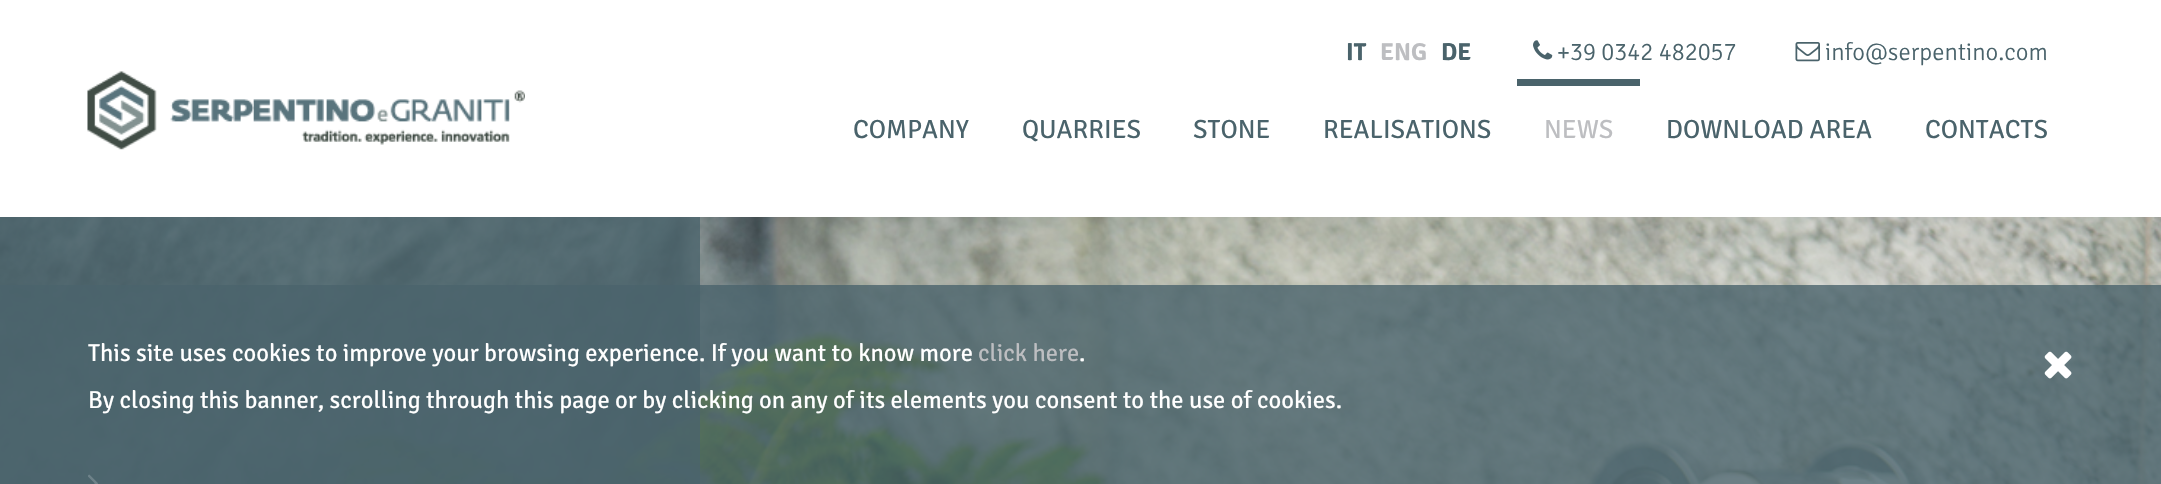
void draw(SkCanvas* c) {
SkPaint p;
p.setAntiAlias(true);
auto F=[&](const char* family, int weight, float size, bool italic = false){SkFontStyle style(weight, SkFontStyle::kNormal_Width,italic ? SkFontStyle::kItalic_Slant : SkFontStyle::kUpright_Slant);SkFont result(fontMgr->matchFamilyStyle(family, style), size);result.setSubpixel(true);return result;};
auto T=[&](const char* s, float x, float y, const SkFont& font){c->drawString(s, x, y, font, p);};
auto R=[&](float x, float y, float w, float h){c->drawRect(SkRect::MakeXYWH(x, y, w, h), p);};
auto I=[&](const char* path, float x, float y, float w, float h){auto image = SkImages::DeferredFromEncodedData(SkData::MakeFromFileName(path));c->drawImageRect(image, SkRect::MakeXYWH(x, y, w, h), SkSamplingOptions());};
c->clear(0xffffffff);
auto f1 = F("Signika Negative",700,24.5);
p.setColor(0xff4a636b);
T("IT",1346,60,f1);
p.setColor(0xffbdbec1);
T("ENG",1380,60,f1);
p.setColor(0xff4a636b);
T("DE",1441,60,f1);
I("1.png",1533,40,20,20);
auto f2 = F("Signika Negative",300,24.5);
T("+39 0342 482057",1557,60,f2);
I("2.png",1795,42,25,20);
T("info@serpentino.com",1825,60,f2);
I("3.png",87,71,438,79);
auto f3 = F("Signika Negative",400,26.25);
T("COMPANY",853,138,f3);
T("QUARRIES",1022,138,f3);
T("STONE",1193,138,f3);
T("REALISATIONS",1323,138,f3);
R(1517,79,123,7);
p.setColor(0xffbdbec1);
T("NEWS",1544,138,f3);
p.setColor(0xff4a636b);
T("DOWNLOAD AREA",1666,138,f3);
T("CONTACTS",1925,138,f3);
I("4.png",0,217,2161,267);
p.setColor(0xcc4a636b);
R(0,217,700,267);
I("5.png",88,474,10,10);
R(0,285,2161,199);
auto f4 = F("Signika Negative",400,24.5);
p.setColor(0xffffffff);
T("This site uses cookies to improve your browsing experience. If you want to know more",88,361,f4);
p.setColor(0xffbdbec1);
T("click here",978,361,f4);
p.setColor(0xffffffff);
T(".",1079,361,f4);
T("By closing this banner, scrolling through this page or by clicking on any of its elements you consent to the use of cookies.",88,408,f4);
I("6.png",2044,351,28,28);
}
